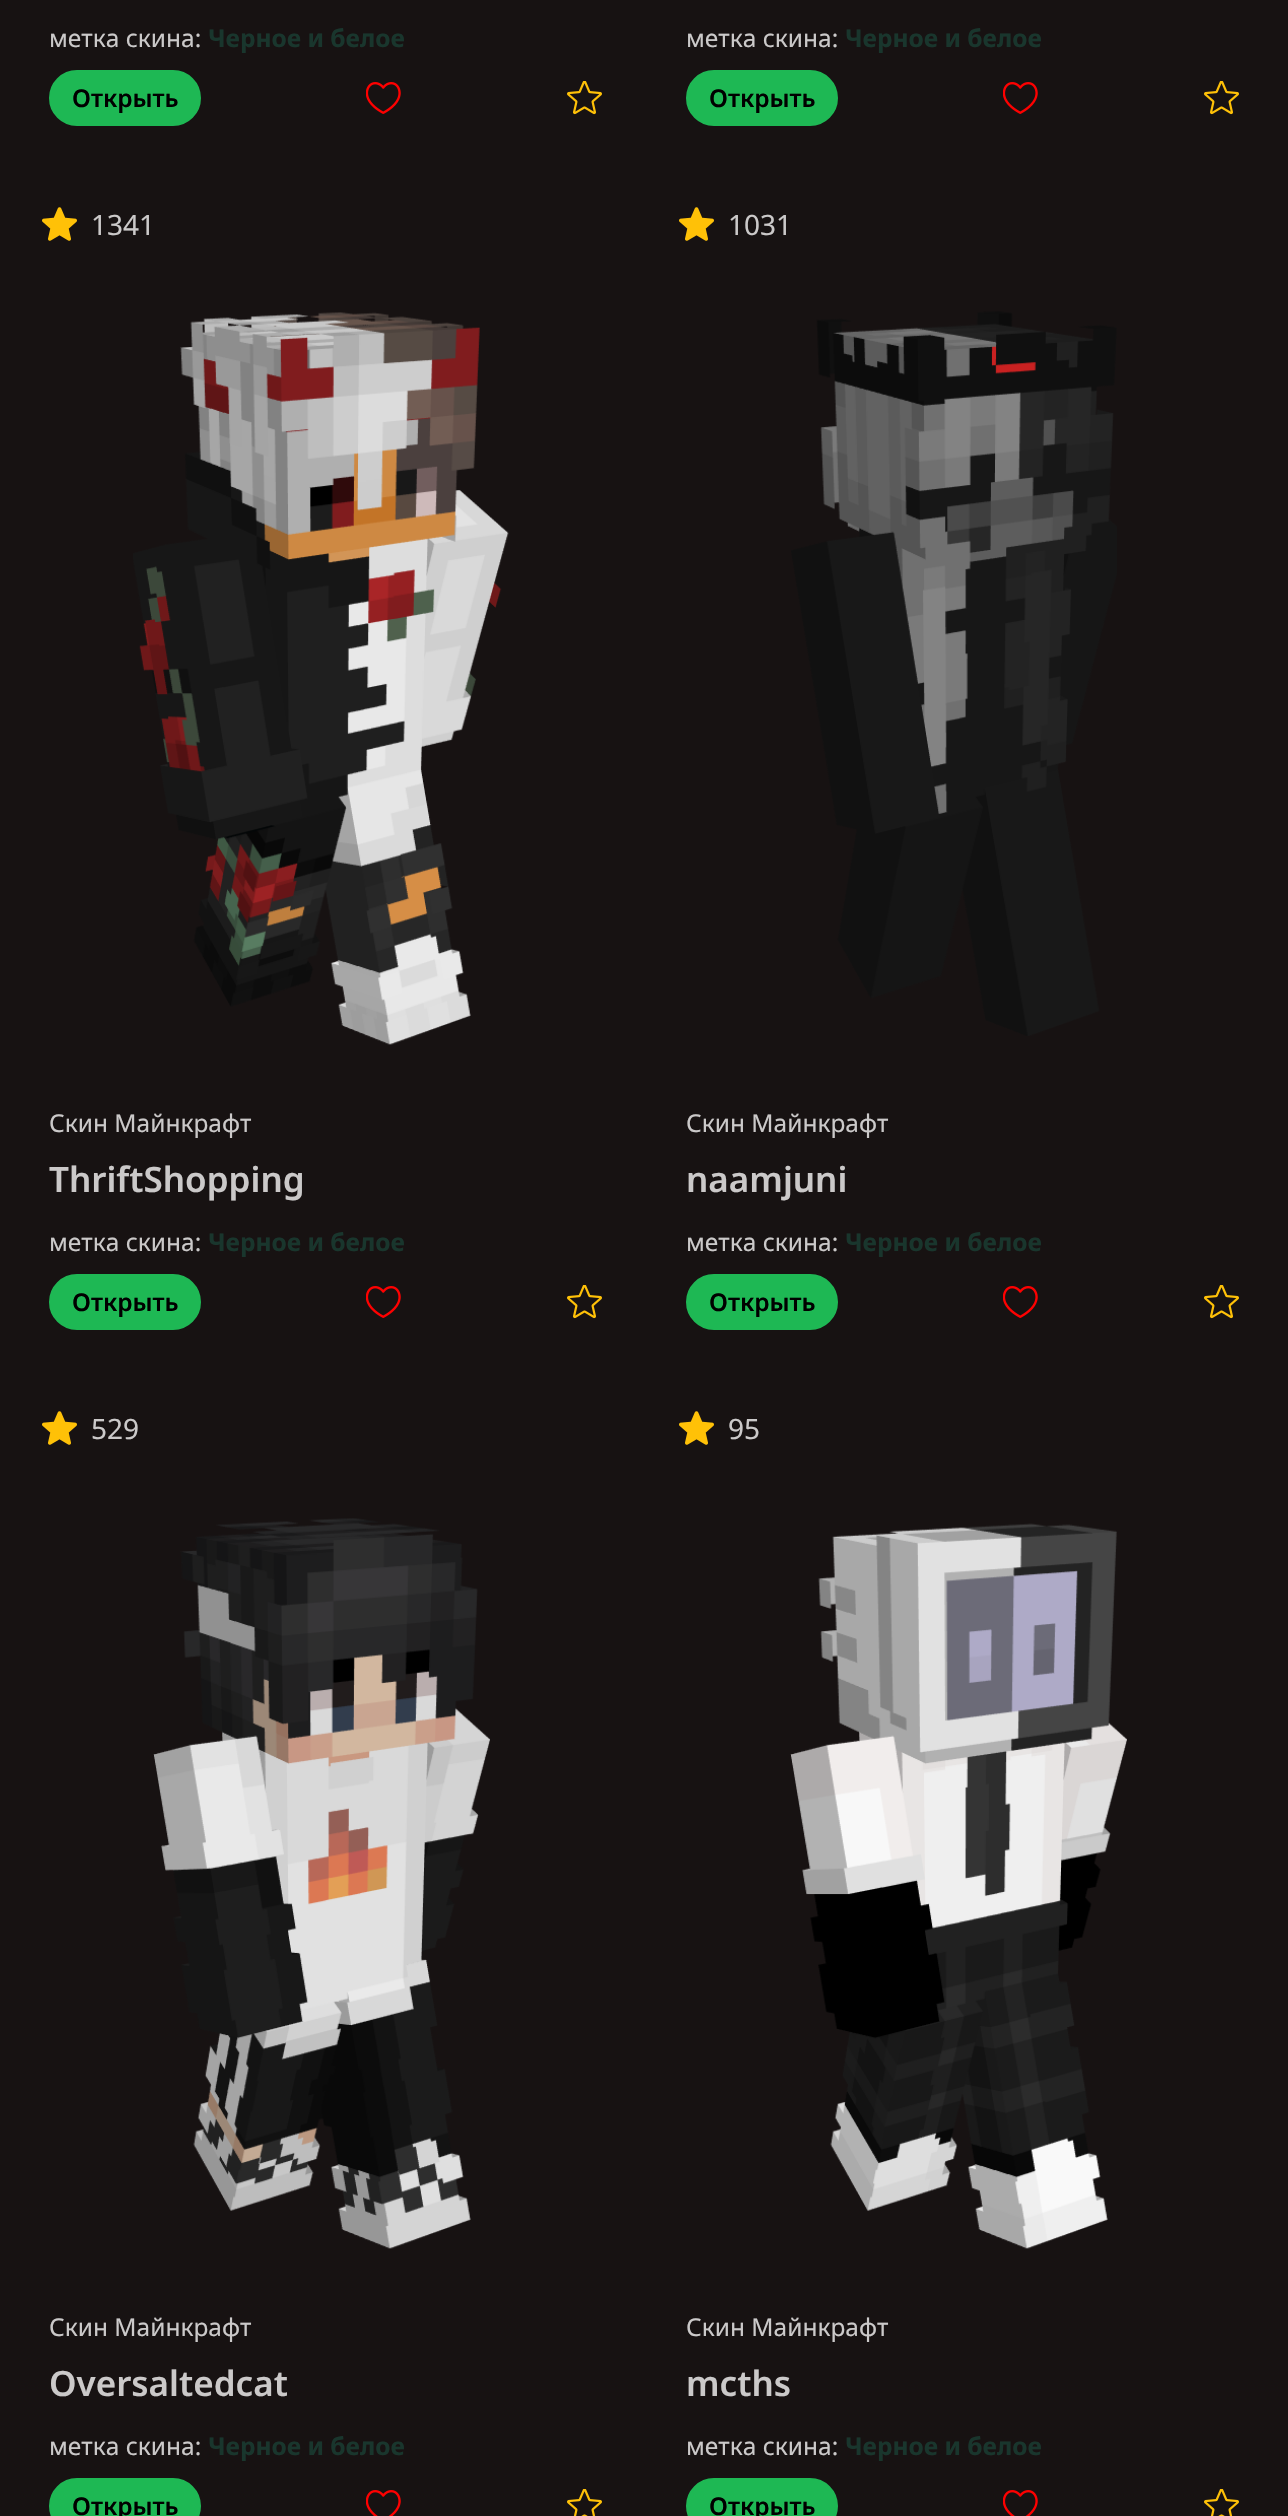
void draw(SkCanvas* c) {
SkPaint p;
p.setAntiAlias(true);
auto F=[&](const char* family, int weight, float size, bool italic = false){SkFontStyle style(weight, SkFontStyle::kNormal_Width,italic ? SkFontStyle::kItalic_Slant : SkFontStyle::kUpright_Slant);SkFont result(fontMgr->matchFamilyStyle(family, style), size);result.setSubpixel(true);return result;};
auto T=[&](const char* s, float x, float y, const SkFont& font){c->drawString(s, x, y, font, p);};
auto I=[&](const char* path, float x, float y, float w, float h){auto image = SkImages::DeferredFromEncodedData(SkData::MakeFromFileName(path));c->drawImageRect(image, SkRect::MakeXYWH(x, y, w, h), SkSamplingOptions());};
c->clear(0xff171212);
auto f1 = F("Noto Sans",400,24.5);
p.setColor(0xffcbc9c9);
T("метка скина:",49,47,f1);
auto f2 = F("Noto Sans",700,24.5);
p.setColor(0xff19362d);
T("Черное и белое",208,47,f2);
p.setColor(0xff1eb854);
c->drawRoundRect(SkRect::MakeXYWH(50,71,150,54),27,27,p);
p.setStroke(true);
p.setStrokeWidth(2);
c->drawRoundRect(SkRect::MakeXYWH(50,71,150,54),27,27,p);
auto f3 = F("Noto Sans",600,24.5);
p.setStroke(false);
p.setColor(0xff000000);
T("Открыть",72,107,f3);
I("1.png",366,82,35,32);
I("2.png",567,81,35,34);
p.setColor(0xffcbc9c9);
T("метка скина:",686,47,f1);
p.setColor(0xff19362d);
T("Черное и белое",845,47,f2);
p.setColor(0xff1eb854);
c->drawRoundRect(SkRect::MakeXYWH(687,71,150,54),27,27,p);
p.setStroke(true);
c->drawRoundRect(SkRect::MakeXYWH(687,71,150,54),27,27,p);
p.setStroke(false);
p.setColor(0xff000000);
T("Открыть",709,107,f3);
I("1.png",1003,82,35,32);
I("2.png",1204,81,35,34);
I("3.png",42,207,35,34);
auto f4 = F("Noto Sans",400,28);
p.setColor(0xffcbc9c9);
T("1341",91,235,f4);
I("4.png",133,312,376,733);
T("Скин Майнкрафт",49,1132,f1);
auto f5 = F("Noto Sans",600,35);
T("ThriftShopping",49,1192,f5);
T("метка скина:",49,1251,f1);
p.setColor(0xff19362d);
T("Черное и белое",208,1251,f2);
p.setColor(0xff1eb854);
c->drawRoundRect(SkRect::MakeXYWH(50,1275,150,54),27,27,p);
p.setStroke(true);
c->drawRoundRect(SkRect::MakeXYWH(50,1275,150,54),27,27,p);
p.setStroke(false);
p.setColor(0xff000000);
T("Открыть",72,1311,f3);
I("1.png",366,1286,35,32);
I("2.png",567,1285,35,34);
I("3.png",679,207,35,34);
p.setColor(0xffcbc9c9);
T("1031",728,235,f4);
I("5.png",791,311,326,725);
T("Скин Майнкрафт",686,1132,f1);
T("naamjuni",686,1192,f5);
T("метка скина:",686,1251,f1);
p.setColor(0xff19362d);
T("Черное и белое",845,1251,f2);
p.setColor(0xff1eb854);
c->drawRoundRect(SkRect::MakeXYWH(687,1275,150,54),27,27,p);
p.setStroke(true);
c->drawRoundRect(SkRect::MakeXYWH(687,1275,150,54),27,27,p);
p.setStroke(false);
p.setColor(0xff000000);
T("Открыть",709,1311,f3);
I("1.png",1003,1286,35,32);
I("2.png",1204,1285,35,34);
I("3.png",42,1411,35,34);
p.setColor(0xffcbc9c9);
T("529",91,1439,f4);
I("6.png",153,1518,337,731);
T("Скин Майнкрафт",49,2336,f1);
T("Oversaltedcat",49,2396,f5);
T("метка скина:",49,2455,f1);
p.setColor(0xff19362d);
T("Черное и белое",208,2455,f2);
p.setColor(0xff1eb854);
c->drawRoundRect(SkRect::MakeXYWH(50,2479,150,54),27,27,p);
p.setStroke(true);
c->drawRoundRect(SkRect::MakeXYWH(50,2479,150,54),27,27,p);
p.setStroke(false);
p.setColor(0xff000000);
T("Открыть",72,2515,f3);
I("7.png",366,2490,35,26);
I("8.png",567,2489,35,27);
I("3.png",679,1411,35,34);
p.setColor(0xffcbc9c9);
T("95",728,1439,f4);
I("9.png",790,1523,337,726);
T("Скин Майнкрафт",686,2336,f1);
T("mcths",686,2396,f5);
T("метка скина:",686,2455,f1);
p.setColor(0xff19362d);
T("Черное и белое",845,2455,f2);
p.setColor(0xff1eb854);
c->drawRoundRect(SkRect::MakeXYWH(687,2479,150,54),27,27,p);
p.setStroke(true);
c->drawRoundRect(SkRect::MakeXYWH(687,2479,150,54),27,27,p);
p.setStroke(false);
p.setColor(0xff000000);
T("Открыть",709,2515,f3);
I("7.png",1003,2490,35,26);
I("8.png",1204,2489,35,27);
}
